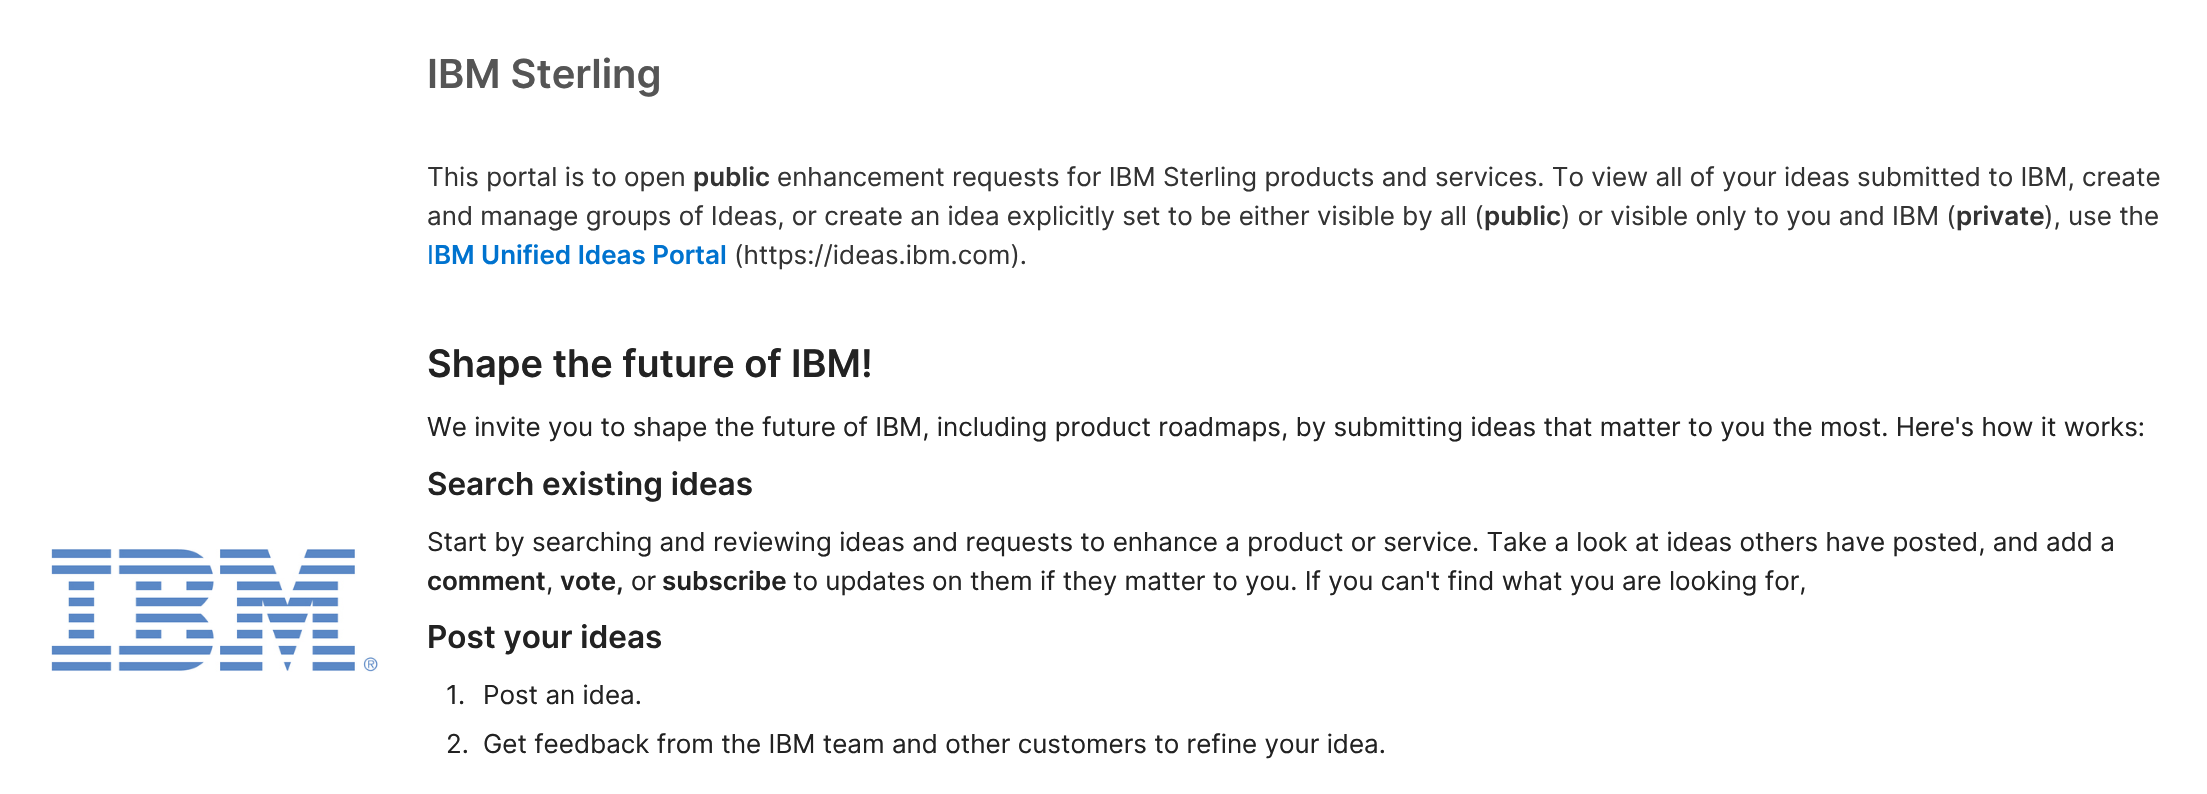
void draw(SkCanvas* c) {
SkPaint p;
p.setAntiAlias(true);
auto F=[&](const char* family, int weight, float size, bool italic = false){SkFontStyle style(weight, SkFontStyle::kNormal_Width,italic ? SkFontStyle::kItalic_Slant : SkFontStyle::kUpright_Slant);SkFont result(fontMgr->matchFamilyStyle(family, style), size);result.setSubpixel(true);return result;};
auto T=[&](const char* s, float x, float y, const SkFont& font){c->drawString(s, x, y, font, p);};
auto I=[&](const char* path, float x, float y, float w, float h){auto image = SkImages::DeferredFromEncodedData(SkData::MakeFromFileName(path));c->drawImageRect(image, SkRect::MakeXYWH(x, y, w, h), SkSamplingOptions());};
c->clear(0xffffffff);
I("1.png",51,549,327,123);
auto f1 = F("Inter",600,40);
p.setColor(0xff555555);
T("IBM Sterling",427,88,f1);
auto f2 = F("Inter",400,26);
p.setColor(0xff333333);
T("This portal is to open",427,186,f2);
auto f3 = F("Inter",600,26);
T("public",693,186,f3);
T("enhancement requests for IBM Sterling products and services. To view all of your ideas submitted to IBM, create",777,186,f2);
T("and manage groups of Ideas, or create an idea explicitly set to be either visible by all (",427,225,f2);
T("public",1484,225,f3);
T(") or visible only to you and IBM (",1561,225,f2);
T("private",1956,225,f3);
T("), use the",2044,225,f2);
p.setColor(0xff0073cf);
T("I",427,264,f2);
T("BM Unified Ideas Portal",434,264,f3);
p.setColor(0xff333333);
T("(https://ideas.ibm.com).",734,264,f2);
auto f4 = F("Inter",600,38);
p.setColor(0xff222222);
T("Shape the future of IBM!",427,377,f4);
T("We invite you to shape the future of IBM, including product roadmaps, by submitting ideas that matter to you the most. Here's how it works:",427,436,f2);
auto f5 = F("Inter",600,31.5);
T("Search existing ideas",427,495,f5);
T("Start by searching and reviewing ideas and requests to enhance a product or service. Take a look at ideas others have posted, and add a",427,551,f2);
T("comment",427,590,f3);
T(",",546,590,f2);
T("vote,",560,590,f3);
T("or",631,590,f2);
T("subscribe",662,590,f3);
T("to updates",793,590,f2);
T("on them if they matter to you. If you can't find what you are looking for,",932,590,f2);
T("Post your ideas",427,648,f5);
T("1.",446,704,f2);
T("Post an idea.",483,704,f2);
T("2.",446,753,f2);
T("Get feedback from the IBM team and other customers to refine your idea.",483,753,f2);
}
